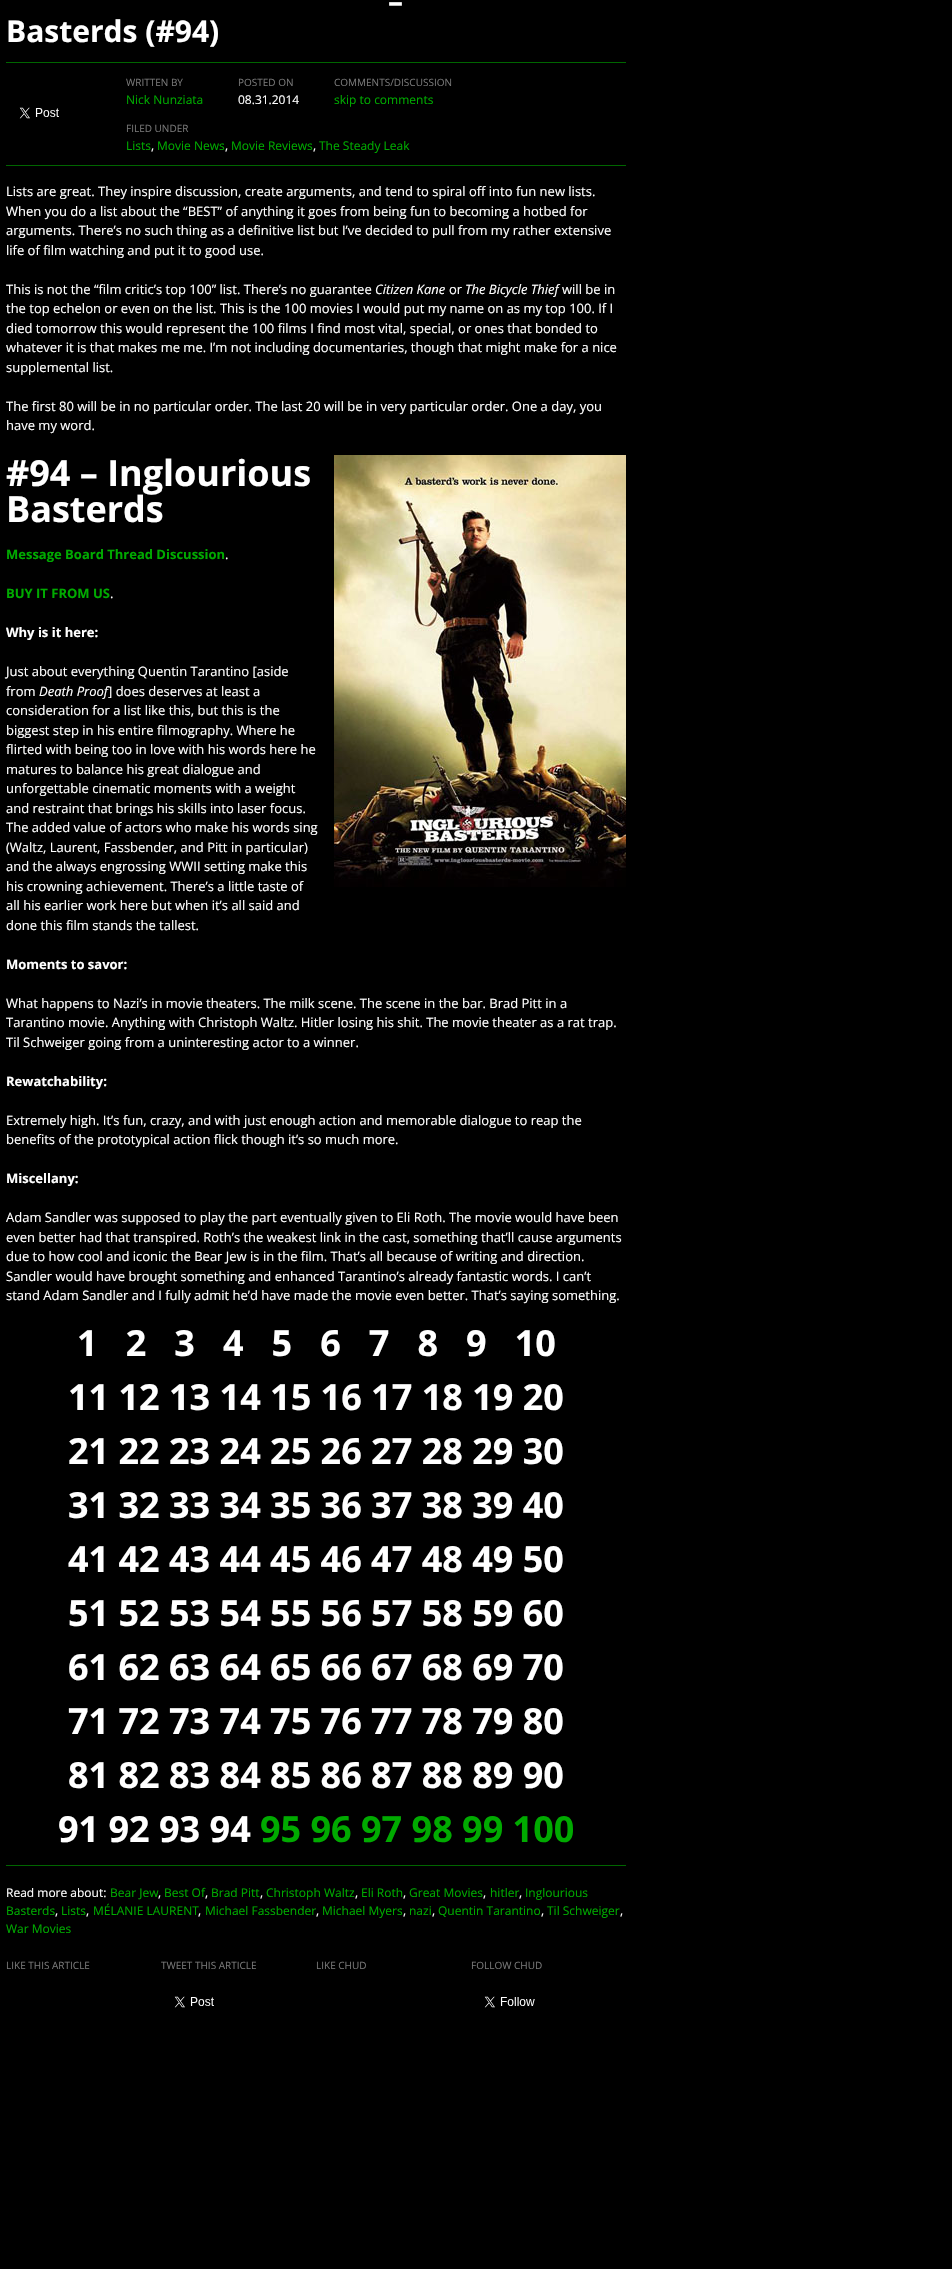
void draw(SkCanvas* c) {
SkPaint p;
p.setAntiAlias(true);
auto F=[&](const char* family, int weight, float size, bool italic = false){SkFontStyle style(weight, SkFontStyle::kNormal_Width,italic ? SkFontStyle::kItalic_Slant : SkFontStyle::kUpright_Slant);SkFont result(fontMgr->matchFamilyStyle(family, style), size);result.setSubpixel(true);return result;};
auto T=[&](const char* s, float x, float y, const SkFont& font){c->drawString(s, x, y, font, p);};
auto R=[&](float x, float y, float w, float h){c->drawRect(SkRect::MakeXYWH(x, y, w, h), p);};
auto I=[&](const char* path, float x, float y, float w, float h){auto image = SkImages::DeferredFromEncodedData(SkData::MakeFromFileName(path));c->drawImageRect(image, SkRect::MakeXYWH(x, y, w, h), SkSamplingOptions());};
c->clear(0xff000000);
auto f1 = F("Open Sans",700,30);
p.setColor(0xffffffff);
T("–",388,12,f1);
T("Basterds (#94)",6,42,f1);
p.setColor(0xff006600);
R(6,62,620,1);
R(6,165,620,1);
I("1.png",19,107,40,12);
auto f2 = F("Open Sans",400,10);
p.setColor(0xff777777);
T("WRITTEN BY",126,86,f2);
auto f3 = F("Open Sans",400,12);
p.setColor(0xff00aa00);
T("Nick Nunziata",126,104,f3);
p.setColor(0xff777777);
T("POSTED ON",238,86,f2);
p.setColor(0xffffffff);
T("08.31.2014",238,104,f3);
p.setColor(0xff777777);
T("COMMENTS/DISCUSSION",334,86,f2);
p.setColor(0xff00aa00);
T("skip to comments",334,104,f3);
p.setColor(0xff777777);
T("FILED UNDER",126,132,f2);
p.setColor(0xff00aa00);
T("Lists",126,150,f3);
p.setColor(0xffffffff);
T(",",151,150,f3);
p.setColor(0xff00aa00);
T("Movie News",157,150,f3);
p.setColor(0xffffffff);
T(",",225,150,f3);
p.setColor(0xff00aa00);
T("Movie Reviews",231,150,f3);
p.setColor(0xffffffff);
T(",",313,150,f3);
p.setColor(0xff00aa00);
T("The Steady Leak",319,150,f3);
auto f4 = F("Open Sans",400,13);
p.setColor(0xffffffff);
T("Lists are great. They inspire discussion, create arguments, and tend to spiral off into fun new lists.",6,196,f4);
T("When you do a list about the “BEST” of anything it goes from being fun to becoming a hotbed for",6,216,f4);
T("arguments. There’s no such thing as a definitive list but I’ve decided to pull from my rather extensive",6,235,f4);
T("life of film watching and put it to good use.",6,255,f4);
T("This is not the “film critic’s top 100” list. There’s no guarantee",6,294,f4);
auto f5 = F("Open Sans",400,13,true);
T("Citizen Kane",375,294,f5);
T("or",449,294,f4);
T("The Bicycle Thief",465,294,f5);
T("will be in",562,294,f4);
T("the top echelon or even on the list. This is the 100 movies I would put my name on as my top 100. If I",6,313,f4);
T("died tomorrow this would represent the 100 films I find most vital, special, or ones that bonded to",6,333,f4);
T("whatever it is that makes me me. I’m not including documentaries, though that might make for a nice",6,352,f4);
T("supplemental list.",6,372,f4);
T("The first 80 will be in no particular order. The last 20 will be in very particular order. One a day, you",6,411,f4);
T("have my word.",6,430,f4);
auto f6 = F("Open Sans",700,36);
T("#94 – Inglourious",6,486,f6);
I("2.png",334,455,292,432);
T("Basterds",6,522,f6);
auto f7 = F("Open Sans",700,13);
p.setColor(0xff00aa00);
T("Message Board Thread Discussion",6,559,f7);
p.setColor(0xffffffff);
T(".",225,559,f4);
p.setColor(0xff00aa00);
T("BUY IT FROM US",6,598,f7);
p.setColor(0xffffffff);
T(".",110,598,f4);
T("Why is it here:",6,637,f7);
T("Just about everything Quentin Tarantino [aside",6,676,f4);
T("from",6,696,f4);
T("Death Proof",39,696,f5);
T("] does deserves at least a",108,696,f4);
T("consideration for a list like this, but this is the",6,715,f4);
T("biggest step in his entire filmography. Where he",6,735,f4);
T("flirted with being too in love with his words here he",6,754,f4);
T("matures to balance his great dialogue and",6,774,f4);
T("unforgettable cinematic moments with a weight",6,793,f4);
T("and restraint that brings his skills into laser focus.",6,813,f4);
T("The added value of actors who make his words sing",6,832,f4);
T("(Waltz, Laurent, Fassbender, and Pitt in particular)",6,852,f4);
T("and the always engrossing WWII setting make this",6,871,f4);
T("his crowning achievement. There’s a little taste of",6,891,f4);
T("all his earlier work here but when it’s all said and",6,910,f4);
T("done this film stands the tallest.",6,930,f4);
T("Moments to savor:",6,969,f7);
T("What happens to Nazi’s in movie theaters. The milk scene. The scene in the bar. Brad Pitt in a",6,1008,f4);
T("Tarantino movie. Anything with Christoph Waltz. Hitler losing his shit. The movie theater as a rat trap.",6,1027,f4);
T("Til Schweiger going from a uninteresting actor to a winner.",6,1047,f4);
T("Rewatchability:",6,1086,f7);
T("Extremely high. It’s fun, crazy, and with just enough action and memorable dialogue to reap the",6,1125,f4);
T("benefits of the prototypical action flick though it’s so much more.",6,1144,f4);
T("Miscellany:",6,1183,f7);
T("Adam Sandler was supposed to play the part eventually given to Eli Roth. The movie would have been",6,1222,f4);
T("even better had that transpired. Roth’s the weakest link in the cast, something that’ll cause arguments",6,1242,f4);
T("due to how cool and iconic the Bear Jew is in the film. That’s all because of writing and direction.",6,1261,f4);
T("Sandler would have brought something and enhanced Tarantino’s already fantastic words. I can’t",6,1281,f4);
T("stand Adam Sandler and I fully admit he’d have made the movie even better. That’s saying something.",6,1300,f4);
T("1   2   3   4   5   6   7   8   9   10",77,1356,f6);
T("11 12 13 14 15 16 17 18 19 20",68,1410,f6);
T("21 22 23 24 25 26 27 28 29 30",68,1464,f6);
T("31 32 33 34 35 36 37 38 39 40",68,1518,f6);
T("41 42 43 44 45 46 47 48 49 50",68,1572,f6);
T("51 52 53 54 55 56 57 58 59 60",68,1626,f6);
T("61 62 63 64 65 66 67 68 69 70",68,1680,f6);
T("71 72 73 74 75 76 77 78 79 80",68,1734,f6);
T("81 82 83 84 85 86 87 88 89 90",68,1788,f6);
T("91 92 93 94",58,1842,f6);
p.setColor(0xff00aa00);
T("95 96 97 98 99 100",260,1842,f6);
p.setColor(0xff006600);
R(6,1865,620,1);
p.setColor(0xffffffff);
T("Read more about:",6,1897,f3);
p.setColor(0xff00aa00);
T("Bear Jew",110,1897,f3);
p.setColor(0xffffffff);
T(",",158,1897,f3);
p.setColor(0xff00aa00);
T("Best Of",164,1897,f3);
p.setColor(0xffffffff);
T(",",205,1897,f3);
p.setColor(0xff00aa00);
T("Brad Pitt",211,1897,f3);
p.setColor(0xffffffff);
T(",",260,1897,f3);
p.setColor(0xff00aa00);
T("Christoph Waltz",266,1897,f3);
p.setColor(0xffffffff);
T(",",355,1897,f3);
p.setColor(0xff00aa00);
T("Eli Roth",361,1897,f3);
p.setColor(0xffffffff);
T(",",403,1897,f3);
p.setColor(0xff00aa00);
T("Great Movies",409,1897,f3);
p.setColor(0xffffffff);
T(",",483,1897,f3);
p.setColor(0xff00aa00);
T("hitler",490,1897,f3);
p.setColor(0xffffffff);
T(",",519,1897,f3);
p.setColor(0xff00aa00);
T("Inglourious",525,1897,f3);
T("Basterds",6,1915,f3);
p.setColor(0xffffffff);
T(",",55,1915,f3);
p.setColor(0xff00aa00);
T("Lists",61,1915,f3);
p.setColor(0xffffffff);
T(",",86,1915,f3);
p.setColor(0xff00aa00);
T("MÉLANIE LAURENT",93,1915,f3);
p.setColor(0xffffffff);
T(",",198,1915,f3);
p.setColor(0xff00aa00);
T("Michael Fassbender",205,1915,f3);
p.setColor(0xffffffff);
T(",",316,1915,f3);
p.setColor(0xff00aa00);
T("Michael Myers",322,1915,f3);
p.setColor(0xffffffff);
T(",",403,1915,f3);
p.setColor(0xff00aa00);
T("nazi",409,1915,f3);
p.setColor(0xffffffff);
T(",",432,1915,f3);
p.setColor(0xff00aa00);
T("Quentin Tarantino",438,1915,f3);
p.setColor(0xffffffff);
T(",",541,1915,f3);
p.setColor(0xff00aa00);
T("Til Schweiger",547,1915,f3);
p.setColor(0xffffffff);
T(",",620,1915,f3);
p.setColor(0xff00aa00);
T("War Movies",6,1933,f3);
p.setColor(0xff777777);
T("LIKE THIS ARTICLE",6,1969,f2);
T("TWEET THIS ARTICLE",161,1969,f2);
I("1.png",174,1996,40,12);
T("LIKE CHUD",316,1969,f2);
T("FOLLOW CHUD",471,1969,f2);
I("3.png",484,1996,51,12);
}
